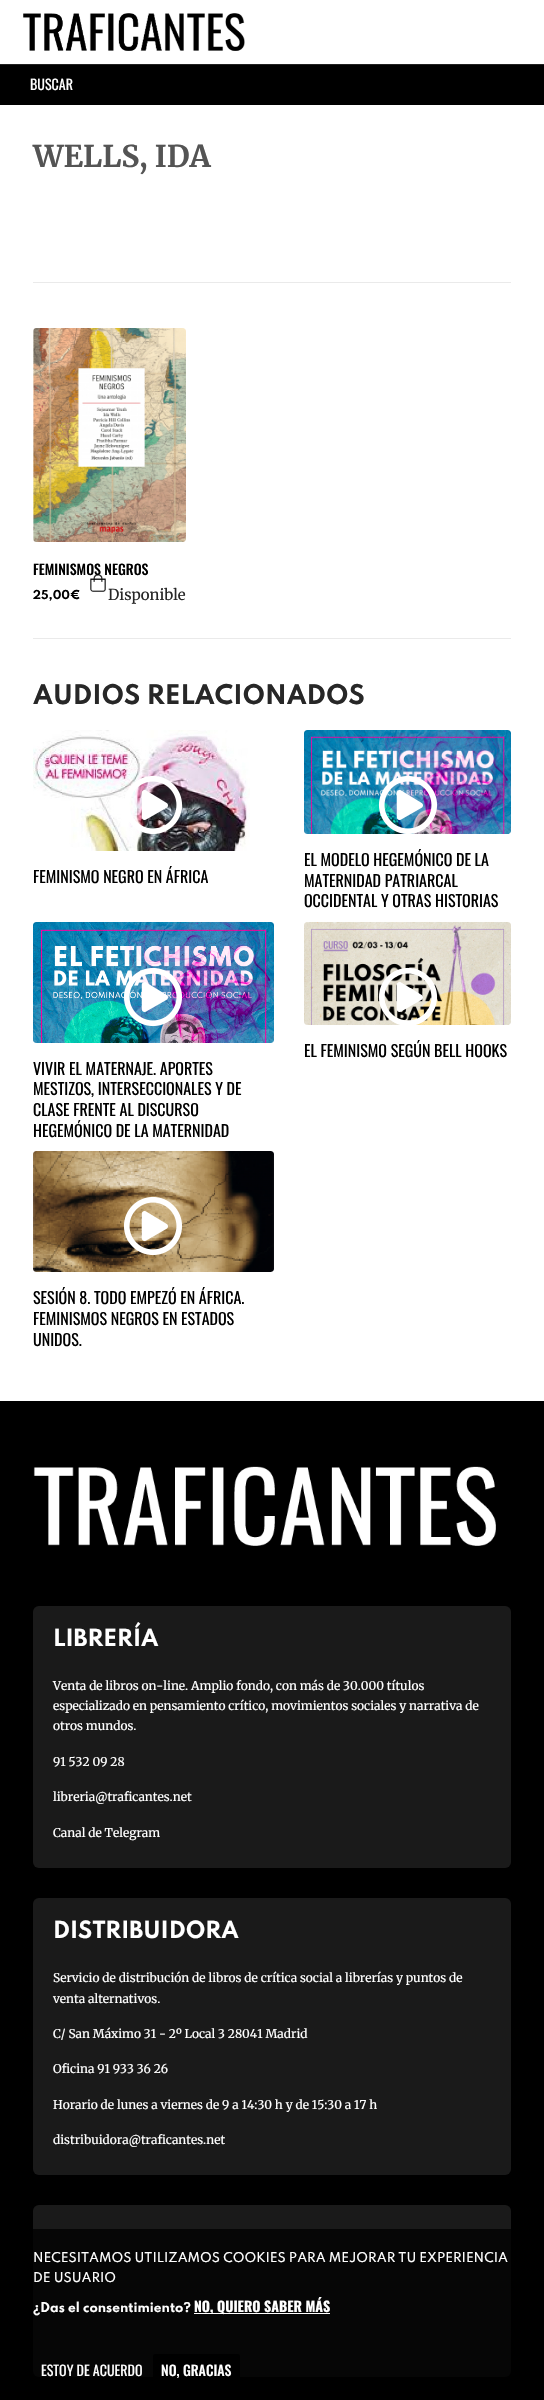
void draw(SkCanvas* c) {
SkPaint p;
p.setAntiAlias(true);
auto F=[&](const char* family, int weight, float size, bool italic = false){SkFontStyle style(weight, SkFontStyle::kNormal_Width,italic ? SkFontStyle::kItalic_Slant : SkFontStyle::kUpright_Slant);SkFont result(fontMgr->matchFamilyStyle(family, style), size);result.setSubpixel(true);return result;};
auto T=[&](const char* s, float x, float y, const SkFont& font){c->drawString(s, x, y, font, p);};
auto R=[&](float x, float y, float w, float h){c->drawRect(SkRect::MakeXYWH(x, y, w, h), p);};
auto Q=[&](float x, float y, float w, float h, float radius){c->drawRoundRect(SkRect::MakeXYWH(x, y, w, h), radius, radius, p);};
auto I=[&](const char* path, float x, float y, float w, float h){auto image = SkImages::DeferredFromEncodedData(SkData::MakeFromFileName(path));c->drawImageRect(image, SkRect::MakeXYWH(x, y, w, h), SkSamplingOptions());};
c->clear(0xffffffff);
I("1.png",23,13,222,38);
p.setColor(0xff222222);
R(0,64,544,1);
p.setColor(0xff000000);
R(0,65,544,40);
auto f1 = F("Oswald",400,14);
p.setColor(0xffffffff);
T("BUSCAR",30,90,f1);
auto f2 = F("Merriweather",700,30);
p.setColor(0xff545454);
T("WELLS, IDA",33,167,f2);
p.setColor(0xffeaeaea);
R(33,282,478,1);
I("2.png",33,328,153,214);
I("3.png",90,574,16,18);
auto f3 = F("Oswald",500,14);
p.setColor(0xff000000);
T("FEMINISMOS NEGROS",33,575,f3);
auto f4 = F("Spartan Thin",700,11);
T("25,00€",33,599,f4);
auto f5 = F("Merriweather",400,15);
p.setColor(0xff272727);
T("Disponible",108,600,f5);
p.setColor(0xffeaeaea);
R(33,638,478,1);
auto f6 = F("Spartan Thin",700,24);
p.setColor(0xff272727);
T("AUDIOS RELACIONADOS",33,704,f6);
I("4.png",33,730,217,121);
I("5.png",125,775,58,59);
auto f7 = F("Oswald",400,16);
p.setColor(0xff000000);
T("FEMINISMO NEGRO EN ÁFRICA",33,883,f7);
I("6.png",304,730,207,104);
I("7.png",378,776,60,58);
T("EL MODELO HEGEMÓNICO DE LA",304,866,f7);
T("MATERNIDAD PATRIARCAL",304,887,f7);
T("OCCIDENTAL Y OTRAS HISTORIAS",304,907,f7);
I("8.png",304,922,207,103);
I("9.png",378,967,60,58);
T("EL FEMINISMO SEGÚN BELL HOOKS",304,1057,f7);
I("10.png",33,922,241,121);
I("11.png",123,967,60,60);
T("VIVIR EL MATERNAJE. APORTES",33,1075,f7);
T("MESTIZOS, INTERSECCIONALES Y DE",33,1095,f7);
T("CLASE FRENTE AL DISCURSO",33,1116,f7);
T("HEGEMÓNICO DE LA MATERNIDAD",33,1137,f7);
I("12.png",33,1151,241,121);
I("13.png",123,1196,60,60);
T("SESIÓN 8. TODO EMPEZÓ EN ÁFRICA.",33,1304,f7);
T("FEMINISMOS NEGROS EN ESTADOS",33,1325,f7);
T("UNIDOS.",33,1346,f7);
R(0,1401,544,999);
I("14.png",33,1466,463,80);
p.setColor(0xff1a1a1a);
Q(33,1606,478,262,6);
auto f8 = F("Spartan Thin",700,21);
p.setColor(0xffffffff);
T("LIBRERÍA",53,1646,f8);
auto f9 = F("Merriweather",400,12);
T("Venta de libros on-line. Amplio fondo, con más de 30.000 títulos",53,1690,f9);
T("especializado en pensamiento crítico, movimientos sociales y narrativa de",53,1710,f9);
T("otros mundos.",53,1730,f9);
T("91 532 09 28",53,1766,f9);
T("libreria@traficantes.net",53,1801,f9);
T("Canal de Telegram",53,1837,f9);
p.setColor(0xff1a1a1a);
Q(33,1898,478,277,6);
p.setColor(0xffffffff);
T("DISTRIBUIDORA",53,1938,f8);
T("Servicio de distribución de libros de crítica social a librerías y puntos de",53,1982,f9);
T("venta alternativos.",53,2003,f9);
T("C/ San Máximo 31 - 2º Local 3 28041 Madrid",53,2038,f9);
T("Oficina 91 933 36 26",53,2073,f9);
T("Horario de lunes a viernes de 9 a 14:30 h y de 15:30 a 17 h",53,2109,f9);
T("distribuidora@traficantes.net",53,2144,f9);
p.setColor(0xff1a1a1a);
Q(33,2205,478,172,6);
p.setColor(0xcc000000);
Q(0,2229,544,171,2);
auto f10 = F("Spartan Thin",500,12);
p.setColor(0xffffffff);
T("NECESITAMOS UTILIZAMOS COOKIES PARA MEJORAR TU EXPERIENCIA",33,2262,f10);
T("DE USUARIO",33,2282,f10);
auto f11 = F("Spartan Thin",700,12);
T("¿Das el consentimiento?",33,2312,f11);
R(194,2313,136,1);
auto f12 = F("Oswald",700,14);
T("NO, QUIERO SABER MÁS",194,2312,f12);
T("ESTOY DE ACUERDO",41,2376,f1);
p.setColor(0xff000000);
Q(153,2354,87,32,2);
p.setColor(0xffffffff);
T("NO, GRACIAS",161,2376,f3);
}
